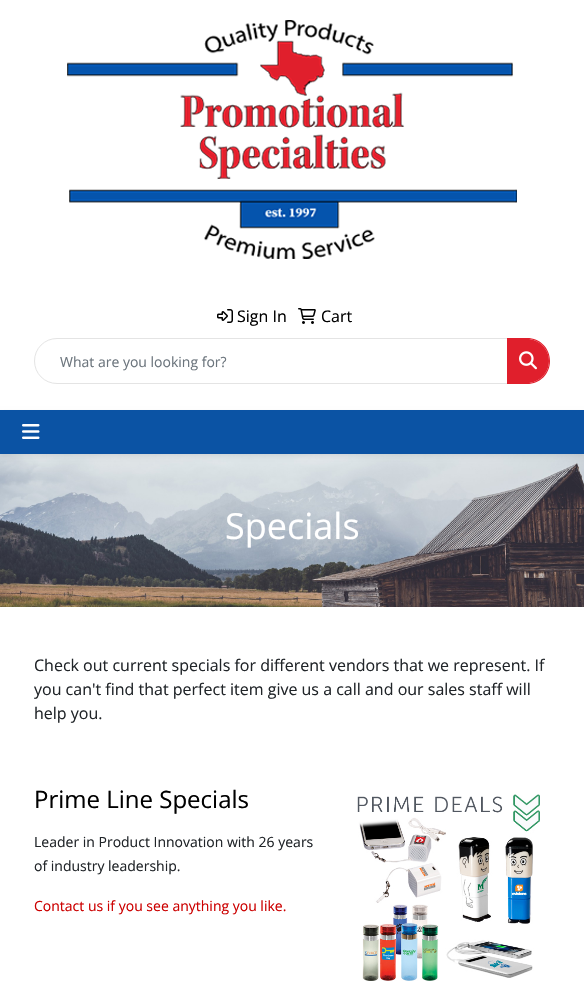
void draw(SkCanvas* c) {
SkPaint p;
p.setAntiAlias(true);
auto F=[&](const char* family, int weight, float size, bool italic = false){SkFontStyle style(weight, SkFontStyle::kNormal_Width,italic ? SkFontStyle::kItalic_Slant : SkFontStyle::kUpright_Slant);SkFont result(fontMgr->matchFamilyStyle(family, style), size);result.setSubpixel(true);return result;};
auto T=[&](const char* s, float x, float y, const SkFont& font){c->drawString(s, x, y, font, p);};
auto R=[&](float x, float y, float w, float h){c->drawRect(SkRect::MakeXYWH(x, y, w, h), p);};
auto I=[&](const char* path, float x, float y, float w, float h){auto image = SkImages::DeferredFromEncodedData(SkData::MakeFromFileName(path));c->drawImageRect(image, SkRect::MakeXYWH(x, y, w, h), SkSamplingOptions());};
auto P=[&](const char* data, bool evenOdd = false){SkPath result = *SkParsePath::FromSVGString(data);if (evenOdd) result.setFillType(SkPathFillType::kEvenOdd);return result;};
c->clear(0xffffffff);
I("1.png",67,20,450,239);
I("2.png",217,309,16,14);
auto f1 = F("Open Sans",400,16);
p.setColor(0xff000000);
T("Sign In",237,322,f1);
I("3.png",298,308,18,16);
T("Cart",321,322,f1);
p.setStroke(true);
p.setStrokeWidth(1);
p.setColor(0xffe4e4e4);
c->drawPath(P("M57 338.5h450.5v45h-450.5c-12.5 0-22.5-10-22.5-22.5c0-12.5 10-22.5 22.5-22.5z"),p);
auto f2 = F("Open Sans",400,14);
p.setStroke(false);
p.setColor(0xff6c757d);
T("What are you looking for?",60,367,f2);
p.setColor(0xffe01f2c);
c->drawPath(P("M507 339h20c12 0 22 10 22 22c0 12-10 22-22 22h-20z"),p);
c->drawPath(P("M507 338h20c13 0 23 10 23 23c0 13-10 23-23 23h-20zm0 1h20c12 0 22 10 22 22c0 12-10 22-22 22h-20z",true),p);
I("4.png",519,351,18,19);
I("6.png",0,454,584,153);
p.setColor(0x12000000);
p.setMaskFilter(SkMaskFilter::MakeBlur(kNormal_SkBlurStyle, 2));
c->drawRect(SkRect::MakeXYWH(0,412,584,44),p);
p.setMaskFilter(nullptr);
p.setColor(0xff0b53a4);
R(0,410,584,44);
I("5.png",22,424,18,15);
auto f3 = F("Open Sans",400,36);
p.setColor(0xffffffff);
T("Specials",225,539,f3);
p.setColor(0xff212529);
T("Check out current specials for different vendors that we represent. If",34,671,f1);
T("you can't find that perfect item give us a call and our sales staff will",34,695,f1);
T("help you.",34,719,f1);
auto f4 = F("Open Sans",400,24);
p.setColor(0xff000000);
T("Prime Line Specials",34,808,f4);
p.setColor(0xff212529);
T("Leader in Product Innovation with 26 years",34,847,f2);
T("of industry leadership.",34,871,f2);
p.setColor(0xffcc0000);
T("Contact us if you see anything you like.",34,911,f2);
I("7.png",357,794,183,187);
}
